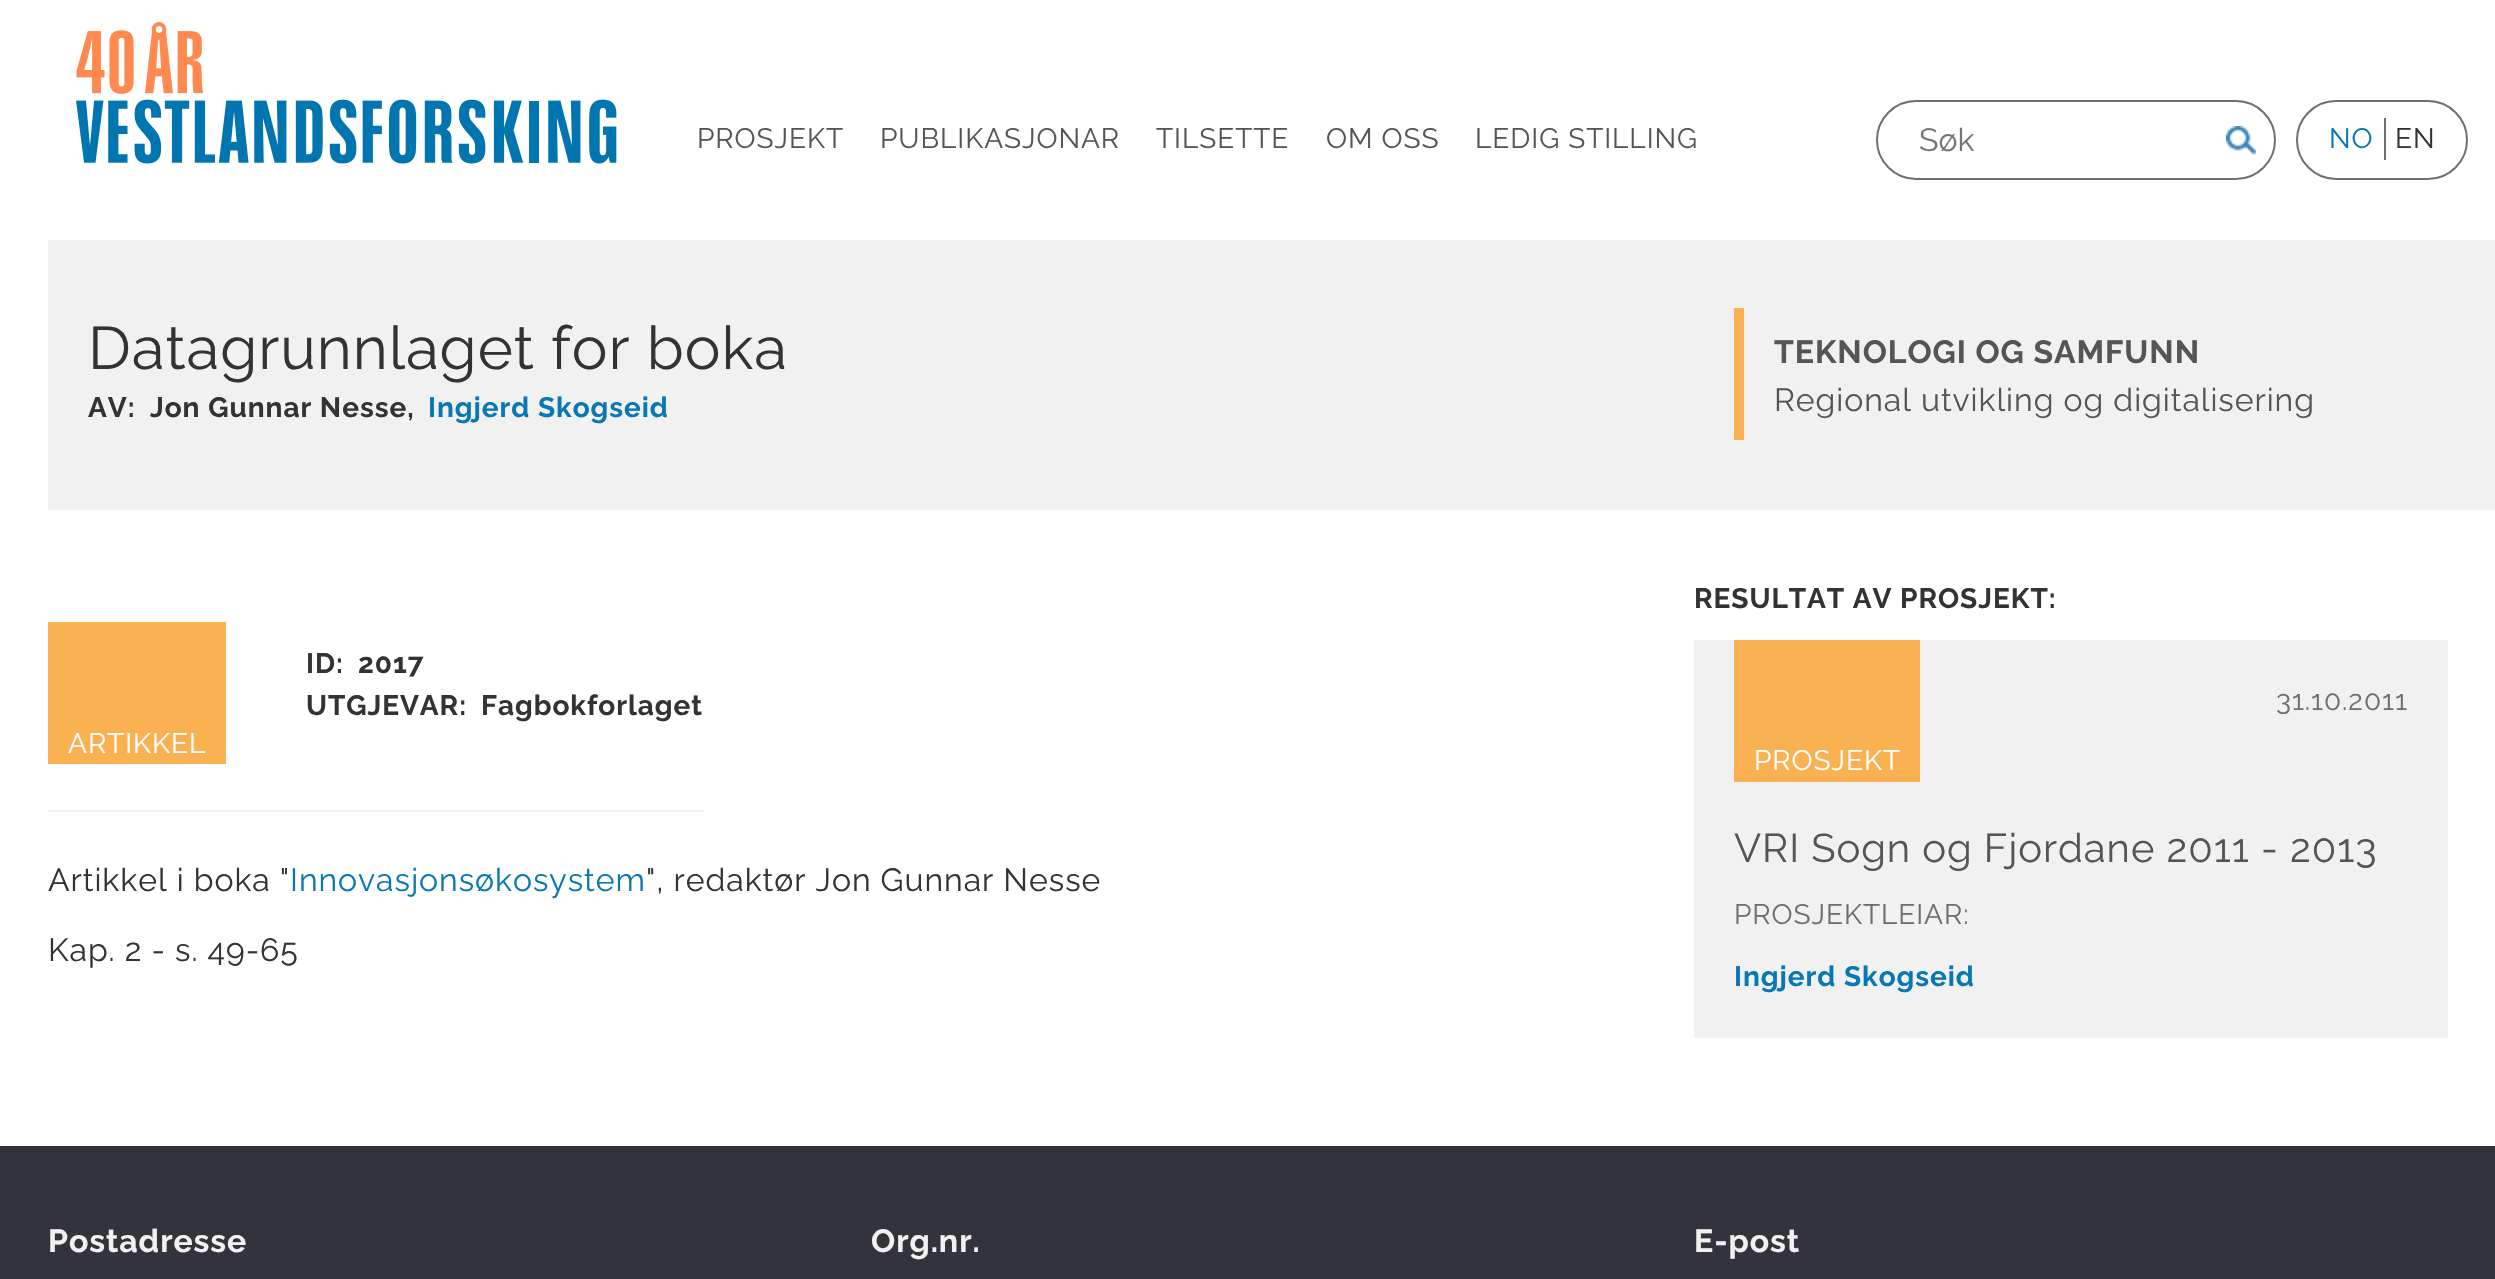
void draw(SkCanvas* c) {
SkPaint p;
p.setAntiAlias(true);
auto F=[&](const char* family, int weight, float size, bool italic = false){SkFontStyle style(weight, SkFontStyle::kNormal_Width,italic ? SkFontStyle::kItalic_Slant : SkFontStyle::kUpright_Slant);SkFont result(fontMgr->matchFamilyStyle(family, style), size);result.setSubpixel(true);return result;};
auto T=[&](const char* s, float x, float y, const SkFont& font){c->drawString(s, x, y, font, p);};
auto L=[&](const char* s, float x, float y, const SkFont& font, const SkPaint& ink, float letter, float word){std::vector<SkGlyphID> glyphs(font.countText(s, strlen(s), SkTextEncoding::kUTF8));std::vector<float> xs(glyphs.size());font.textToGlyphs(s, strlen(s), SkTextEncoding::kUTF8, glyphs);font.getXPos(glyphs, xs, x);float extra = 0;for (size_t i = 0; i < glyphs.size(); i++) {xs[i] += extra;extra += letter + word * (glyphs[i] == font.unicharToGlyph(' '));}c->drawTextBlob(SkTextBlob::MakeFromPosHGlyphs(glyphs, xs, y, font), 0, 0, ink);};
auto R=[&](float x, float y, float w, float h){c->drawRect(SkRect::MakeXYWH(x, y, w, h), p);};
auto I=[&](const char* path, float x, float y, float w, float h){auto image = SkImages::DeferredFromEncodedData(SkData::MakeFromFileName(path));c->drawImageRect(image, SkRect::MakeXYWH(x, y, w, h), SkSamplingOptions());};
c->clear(0xffffffff);
I("1.png",76,22,541,142);
auto f1 = F("Raleway",100,28);
p.setColor(0xff555555);
L("PROSJEKT",697,148,f1,p,.95,0);
L("PUBLIKASJONAR",880,148,f1,p,.95,0);
L("TILSETTE",1156,148,f1,p,.95,0);
L("OM OSS",1326,148,f1,p,.95,0);
L("LEDIG STILLING",1475,148,f1,p,.95,0);
p.setStroke(true);
p.setStrokeWidth(2);
p.setColor(0xff6e6d71);
c->drawRoundRect(SkRect::MakeXYWH(1877,101,398,78),39,39,p);
auto f2 = F("Raleway",100,32);
p.setStroke(false);
p.setColor(0xff757575);
T("Søk",1919,151,f2);
I("2.png",2226,126,30,29);
p.setStroke(true);
p.setColor(0xff6e6d71);
c->drawRoundRect(SkRect::MakeXYWH(2297,101,170,78),39,39,p);
p.setStroke(false);
R(2384,118,2,42);
p.setColor(0xff0877b2);
L("NO",2329,148,f1,p,.95,0);
p.setColor(0xff333333);
L("EN",2395,148,f1,p,.95,0);
p.setColor(0xfff1f1f1);
R(48,240,2447,270);
auto f3 = F("Raleway",100,60);
p.setColor(0xff333333);
L("Datagrunnlaget for boka",88,369,f3,p,.95,0);
auto f4 = F("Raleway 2",100,28);
L("AV:",88,417,f4,p,.95,0);
L("Jon Gunnar Nesse,",150,417,f4,p,.95,0);
p.setColor(0xff0877b2);
L("Ingjerd Skogseid",428,417,f4,p,.95,0);
p.setColor(0xfffab152);
R(1734,308,10,132);
auto f5 = F("Raleway 2",100,32);
p.setColor(0xff555555);
L("TEKNOLOGI OG SAMFUNN",1774,363,f5,p,.95,0);
L("Regional utvikling og digitalisering",1774,411,f2,p,.95,0);
p.setColor(0xfff1f1f1);
R(48,810,656,2);
p.setColor(0xff333333);
L("ID:",306,673,f4,p,.95,0);
L("2017",358,673,f4,p,.95,0);
L("UTGJEVAR:",306,715,f4,p,.95,0);
L("Fagbokforlaget",481,715,f4,p,.95,0);
p.setColor(0xfffab152);
R(48,622,178,142);
p.setColor(0xffffffff);
L("ARTIKKEL",68,753,f1,p,.95,0);
p.setColor(0xff333333);
L("Artikkel i boka \"",48,891,f2,p,.95,0);
p.setColor(0xff0877b2);
L("Innovasjonsøkosystem",290,891,f2,p,.95,0);
p.setColor(0xff333333);
L("\", redaktør Jon Gunnar Nesse",646,891,f2,p,.95,0);
L("Kap. 2 - s. 49-65",48,961,f2,p,.95,0);
L("RESULTAT AV PROSJEKT:",1694,608,f4,p,.95,0);
p.setColor(0xfff1f1f1);
R(1694,640,754,398);
p.setColor(0xff6e6d71);
L("31.10.2011",2276,710,f1,p,.95,0);
p.setColor(0xfffab152);
R(1734,640,186,142);
p.setColor(0xffffffff);
L("PROSJEKT",1754,770,f1,p,.95,0);
auto f6 = F("Raleway",100,40);
p.setColor(0xff555555);
L("VRI Sogn og Fjordane 2011 - 2013",1734,862,f6,p,.95,0);
p.setColor(0xff6e6d71);
L("PROSJEKTLEIAR:",1734,924,f1,p,.95,0);
p.setColor(0xff0877b2);
L("Ingjerd Skogseid",1734,986,f4,p,.95,0);
p.setColor(0xff33333b);
R(0,1146,2495,133);
p.setColor(0xfff1f1f1);
L("Postadresse",48,1252,f5,p,.95,0);
L("Org.nr.",871,1252,f5,p,.95,0);
L("E-post",1694,1252,f5,p,.95,0);
}
